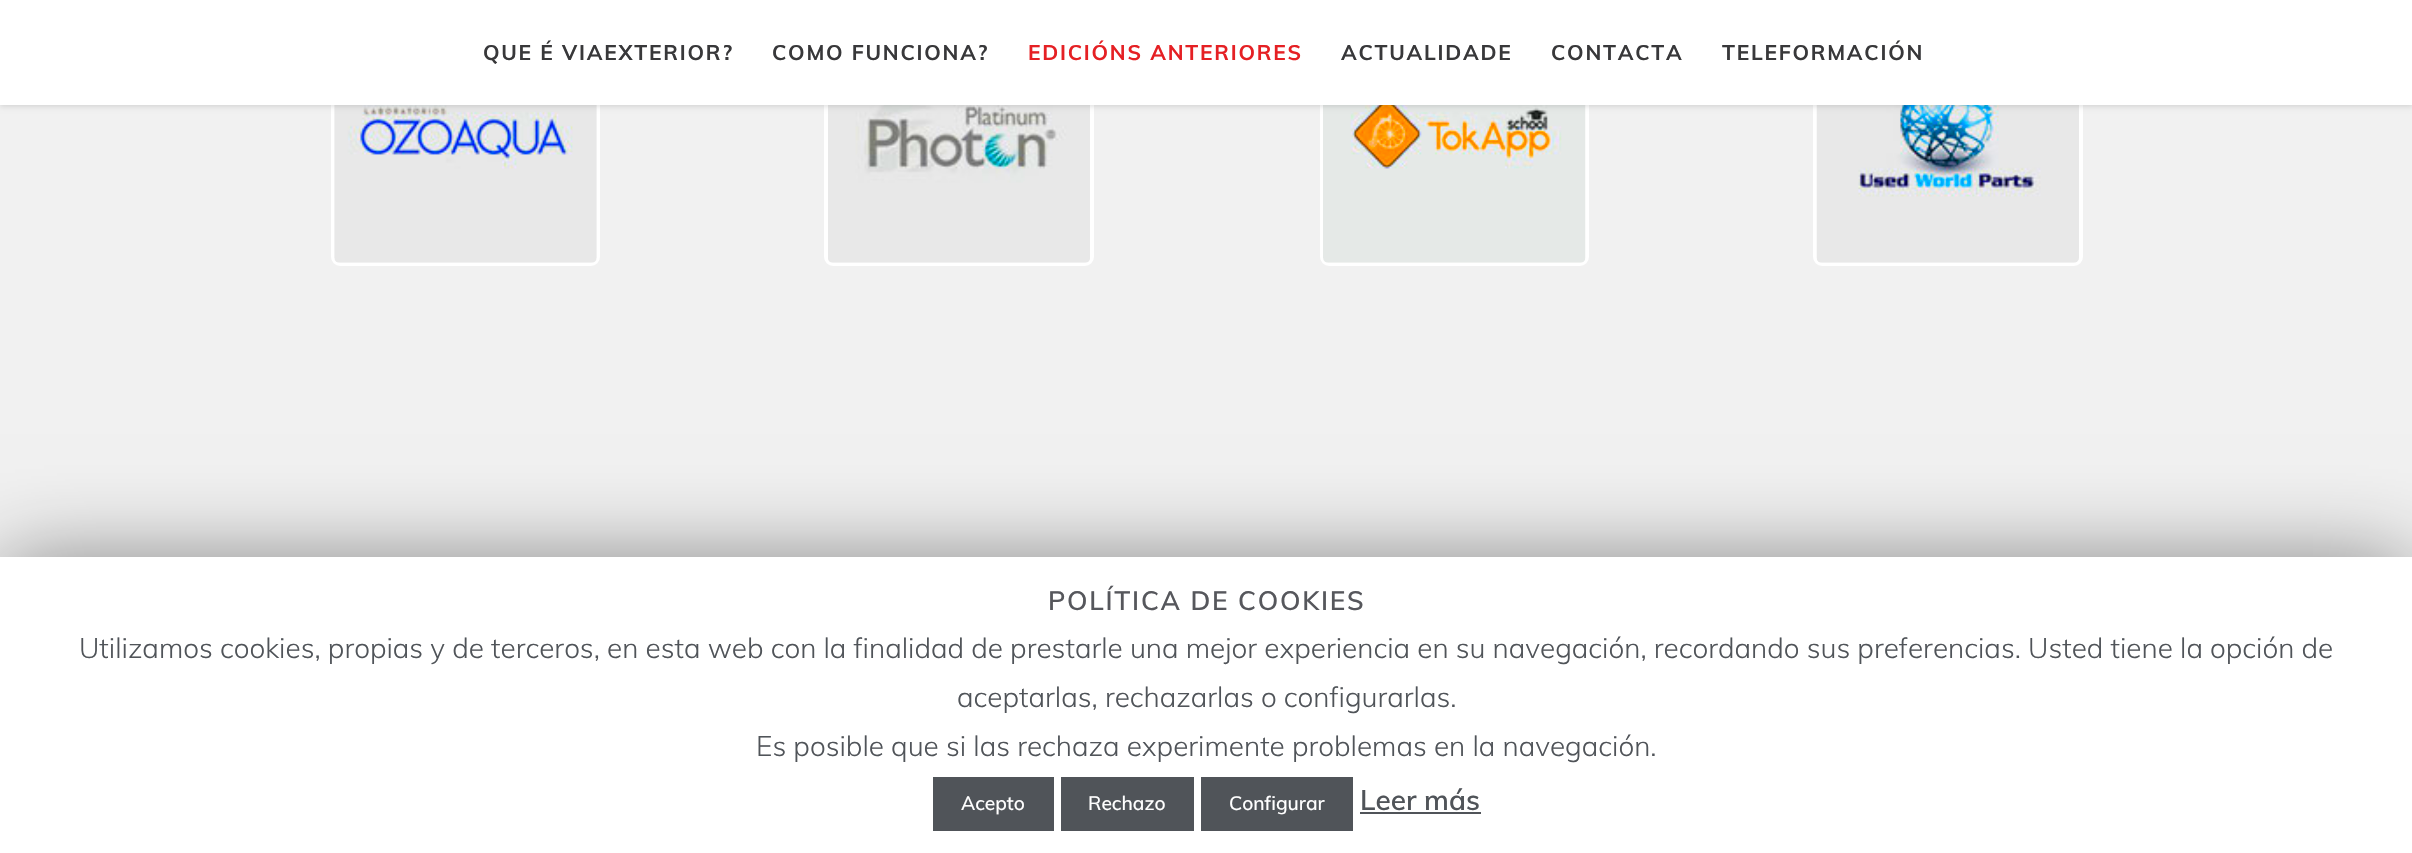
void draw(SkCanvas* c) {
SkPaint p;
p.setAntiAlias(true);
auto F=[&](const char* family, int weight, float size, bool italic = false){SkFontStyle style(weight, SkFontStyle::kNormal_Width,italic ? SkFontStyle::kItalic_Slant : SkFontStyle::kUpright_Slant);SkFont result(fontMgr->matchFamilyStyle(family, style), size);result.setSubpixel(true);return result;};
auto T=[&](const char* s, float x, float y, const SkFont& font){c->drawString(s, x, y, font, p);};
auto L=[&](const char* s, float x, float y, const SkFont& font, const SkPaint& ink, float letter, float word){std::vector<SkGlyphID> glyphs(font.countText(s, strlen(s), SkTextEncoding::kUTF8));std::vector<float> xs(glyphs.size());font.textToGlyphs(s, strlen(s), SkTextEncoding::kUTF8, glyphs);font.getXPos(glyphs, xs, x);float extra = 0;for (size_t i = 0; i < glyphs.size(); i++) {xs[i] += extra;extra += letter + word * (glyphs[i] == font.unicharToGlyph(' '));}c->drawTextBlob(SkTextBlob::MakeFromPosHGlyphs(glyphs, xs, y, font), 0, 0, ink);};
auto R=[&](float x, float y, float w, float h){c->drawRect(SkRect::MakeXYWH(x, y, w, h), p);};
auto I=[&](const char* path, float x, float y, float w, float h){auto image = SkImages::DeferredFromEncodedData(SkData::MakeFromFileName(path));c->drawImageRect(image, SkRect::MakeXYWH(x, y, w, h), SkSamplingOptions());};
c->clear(0xfff1f1f1);
p.setStroke(true);
p.setStrokeWidth(4);
p.setColor(0xffffffff);
c->drawRoundRect(SkRect::MakeXYWH(333,-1,265,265),7,7,p);
I("1.png",334,105,263,158);
c->drawRoundRect(SkRect::MakeXYWH(826,-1,266,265),7,7,p);
I("2.png",828,105,262,158);
c->drawRoundRect(SkRect::MakeXYWH(1322,-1,265,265),7,7,p);
I("3.png",1323,105,263,158);
c->drawRoundRect(SkRect::MakeXYWH(1815,-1,266,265),7,7,p);
I("4.png",1816,105,263,158);
p.setStroke(false);
p.setColor(0x1c000000);
p.setMaskFilter(SkMaskFilter::MakeBlur(kNormal_SkBlurStyle, 2.5));
c->drawRect(SkRect::MakeXYWH(0,2,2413,105),p);
p.setMaskFilter(nullptr);
p.setColor(0xffffffff);
R(0,0,2412,105);
auto f1 = F("Muli",700,21);
p.setColor(0xff38383a);
L("QUE É VIAEXTERIOR?",483,60,f1,p,1.75,0);
L("COMO FUNCIONA?",772,60,f1,p,1.75,0);
p.setColor(0xffe52024);
L("EDICIÓNS ANTERIORES",1028,60,f1,p,1.75,0);
p.setColor(0xff38383a);
L("ACTUALIDADE",1341,60,f1,p,1.75,0);
L("CONTACTA",1551,60,f1,p,1.75,0);
L("TELEFORMACIÓN",1722,60,f1,p,1.75,0);
p.setColor(0x80000000);
p.setMaskFilter(SkMaskFilter::MakeBlur(kNormal_SkBlurStyle, 44));
c->drawRect(SkRect::MakeXYWH(0,565,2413,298),p);
p.setMaskFilter(nullptr);
p.setColor(0xffffffff);
R(0,557,2412,296);
auto f2 = F("Muli",600,26.25);
p.setColor(0xff56575c);
L("POLÍTICA DE COOKIES",1048,610,f2,p,1.75,0);
auto f3 = F("Muli",300,28);
p.setColor(0xff505459);
T("Utilizamos cookies, propias y de terceros, en esta web con la finalidad de prestarle una mejor experiencia en su navegación, recordando sus preferencias. Usted tiene la opción de",79,658,f3);
T("aceptarlas, rechazarlas o configurarlas.",957,707,f3);
T("Es posible que si las rechaza experimente problemas en la navegación.",756,756,f3);
R(933,777,121,54);
auto f4 = F("Muli",500,19.25);
p.setColor(0xffffffff);
T("Acepto",961,810,f4);
p.setColor(0xff505459);
R(1061,777,133,54);
p.setColor(0xffffffff);
T("Rechazo",1088,810,f4);
p.setColor(0xff505459);
R(1201,777,152,54);
p.setColor(0xffffffff);
T("Configurar",1229,810,f4);
auto f5 = F("Muli",600,28);
p.setColor(0xff505459);
T("Leer más",1360,810,f5);
R(1360,812,121,2);
}
